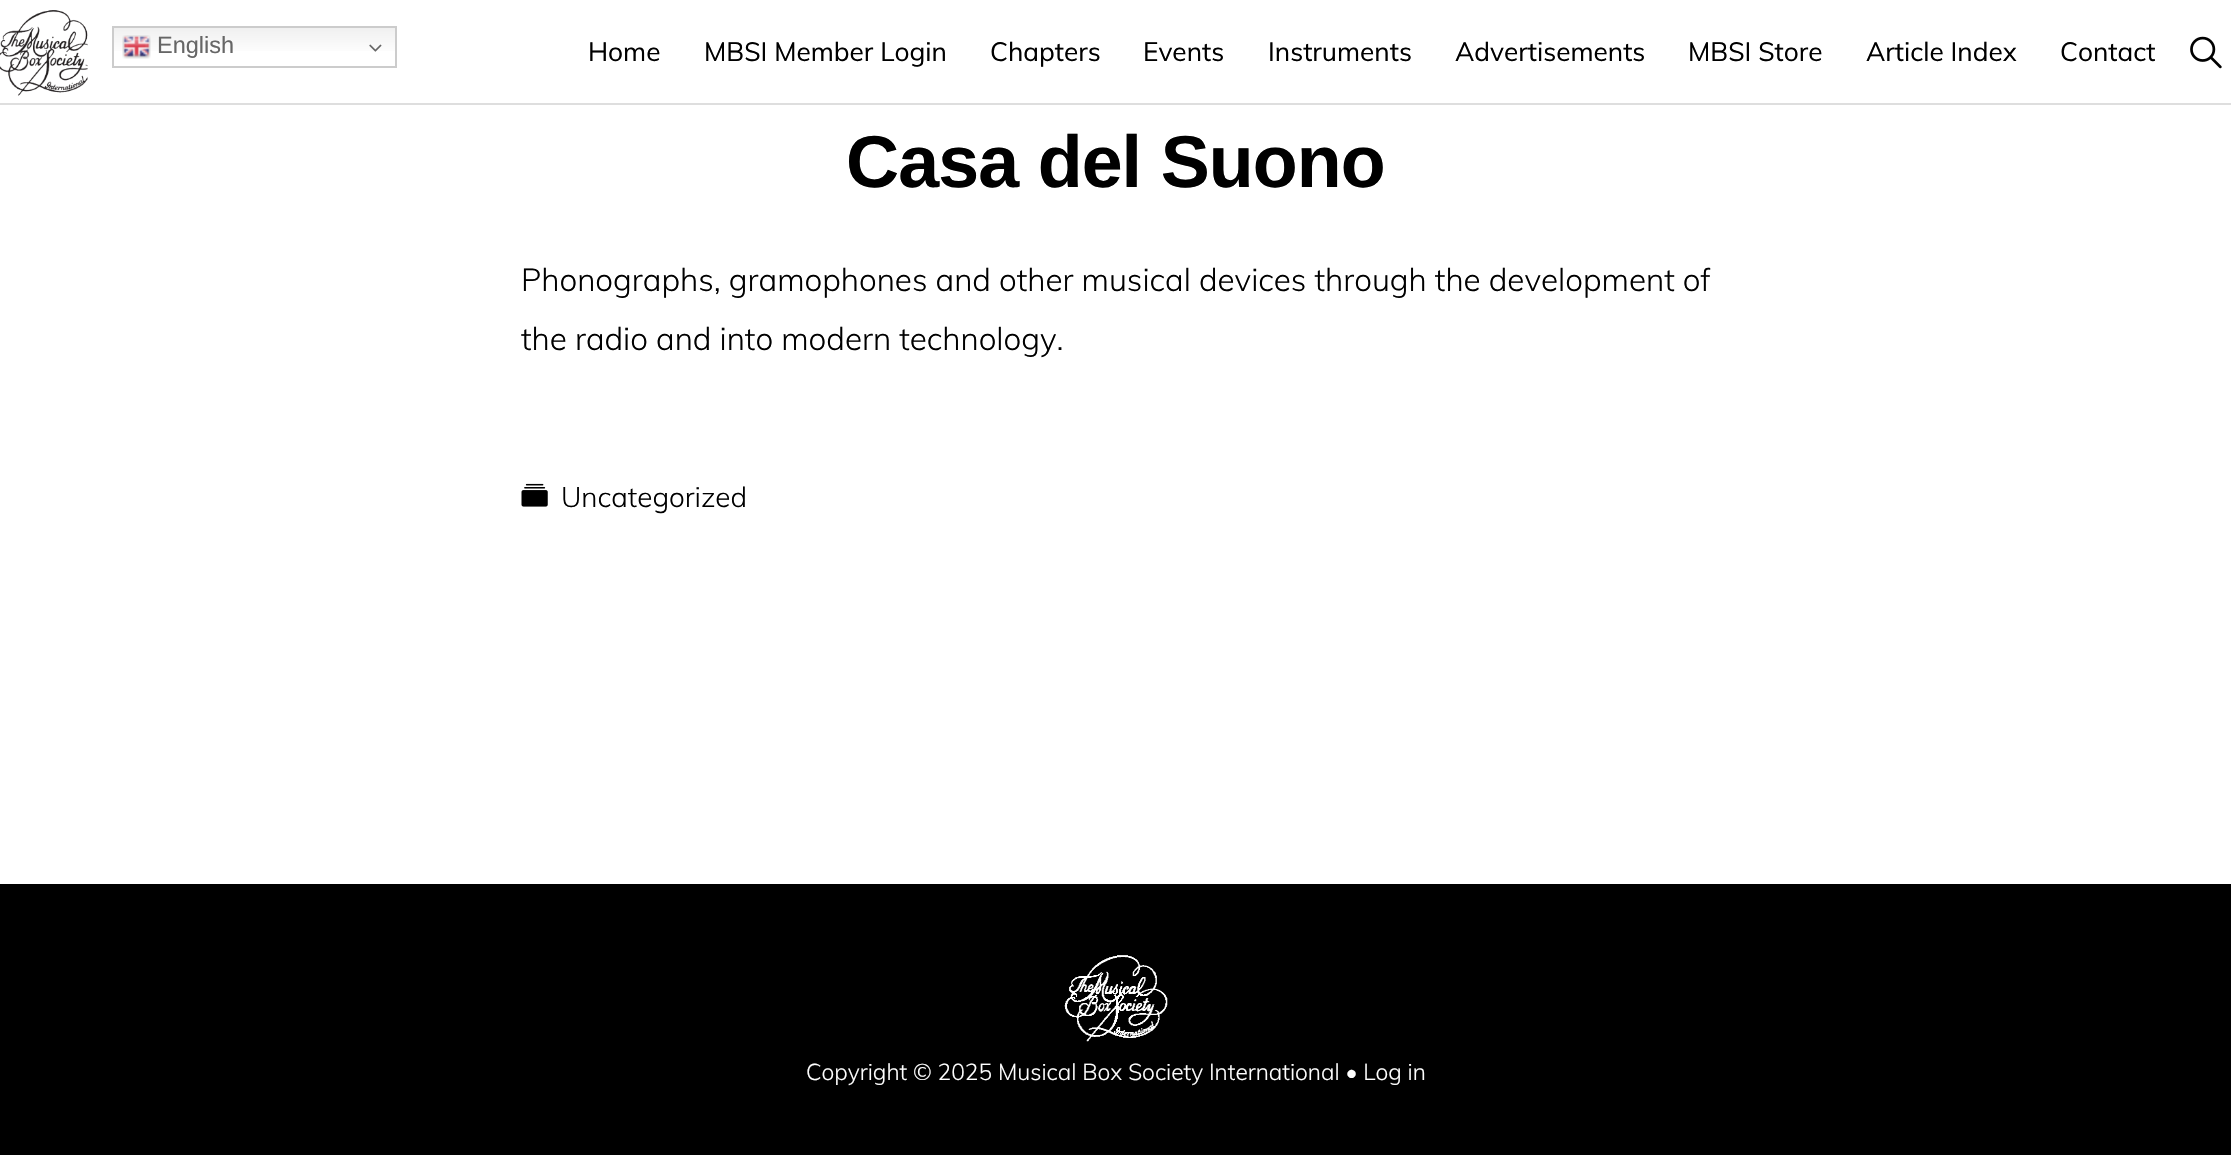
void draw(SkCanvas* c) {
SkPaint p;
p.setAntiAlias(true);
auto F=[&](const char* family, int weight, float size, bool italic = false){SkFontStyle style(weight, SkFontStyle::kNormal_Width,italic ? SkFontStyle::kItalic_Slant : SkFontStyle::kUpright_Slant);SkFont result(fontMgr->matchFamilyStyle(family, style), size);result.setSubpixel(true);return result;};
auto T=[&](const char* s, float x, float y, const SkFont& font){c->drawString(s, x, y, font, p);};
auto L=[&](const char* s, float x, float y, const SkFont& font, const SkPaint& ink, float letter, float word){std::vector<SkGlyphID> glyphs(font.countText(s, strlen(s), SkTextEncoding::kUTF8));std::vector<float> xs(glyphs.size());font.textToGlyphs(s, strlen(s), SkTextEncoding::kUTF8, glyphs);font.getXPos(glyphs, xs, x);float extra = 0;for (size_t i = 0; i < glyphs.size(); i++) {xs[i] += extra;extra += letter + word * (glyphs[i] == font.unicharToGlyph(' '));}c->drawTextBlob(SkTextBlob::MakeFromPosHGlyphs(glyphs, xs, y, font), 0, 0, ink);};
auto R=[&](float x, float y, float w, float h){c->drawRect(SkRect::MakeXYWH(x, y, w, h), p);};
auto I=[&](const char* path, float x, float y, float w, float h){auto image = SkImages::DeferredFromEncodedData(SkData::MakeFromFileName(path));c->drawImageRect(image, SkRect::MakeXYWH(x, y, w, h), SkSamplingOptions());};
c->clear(0xffffffff);
p.setColor(0xffdedede);
R(0,103,2231,2);
I("1.png",0,10,88,86);
{
const SkColor colors[] = {0xffefefef,0xffffffff};
const float stops[] = {0,.7};
const SkPoint ends[] = {{255,26}, {255,68}};
p.setShader(SkGradientShader::MakeLinear(ends, colors, stops, 2, SkTileMode::kClamp));
p.setAlpha(255);
}
R(114,28,281,23);
p.setStroke(true);
p.setStrokeWidth(2);
p.setShader(nullptr);
p.setColor(0xffcccccc);
c->drawRect(SkRect::MakeXYWH(113,27,283,40),p);
I("2.png",122,35,29,24);
auto f1 = F("Liberation Sans",400,23.5);
p.setStroke(false);
p.setColor(0xff666666);
T("English",157,53,f1);
I("3.png",369,44,13,8);
auto f2 = F("Muli",400,26.25);
p.setColor(0xff000000);
T("Home",588,61,f2);
T("MBSI Member Login",704,61,f2);
T("Chapters",990,61,f2);
T("Events",1143,61,f2);
T("Instruments",1268,61,f2);
T("Advertisements",1455,61,f2);
T("MBSI Store",1688,61,f2);
T("Article Index",1866,61,f2);
T("Contact",2060,61,f2);
I("4.png",2190,36,32,33);
auto f3 = F("Liberation Sans",700,73.5);
L("Casa del Suono",846,187,f3,p,-.9,0);
auto f4 = F("Muli",300,31.5);
T("Phonographs, gramophones and other musical devices through the development of",521,291,f4);
T("the radio and into modern technology.",521,350,f4);
I("5.png",521,483,27,24);
auto f5 = F("Muli",300,28);
T("Uncategorized",561,507,f5);
R(0,884,2231,271);
I("6.png",1064,955,104,87);
auto f6 = F("Muli",300,22.75);
p.setColor(0xffffffff);
T("Copyright © 2025 Musical Box Society International • Log in",806,1080,f6);
}
